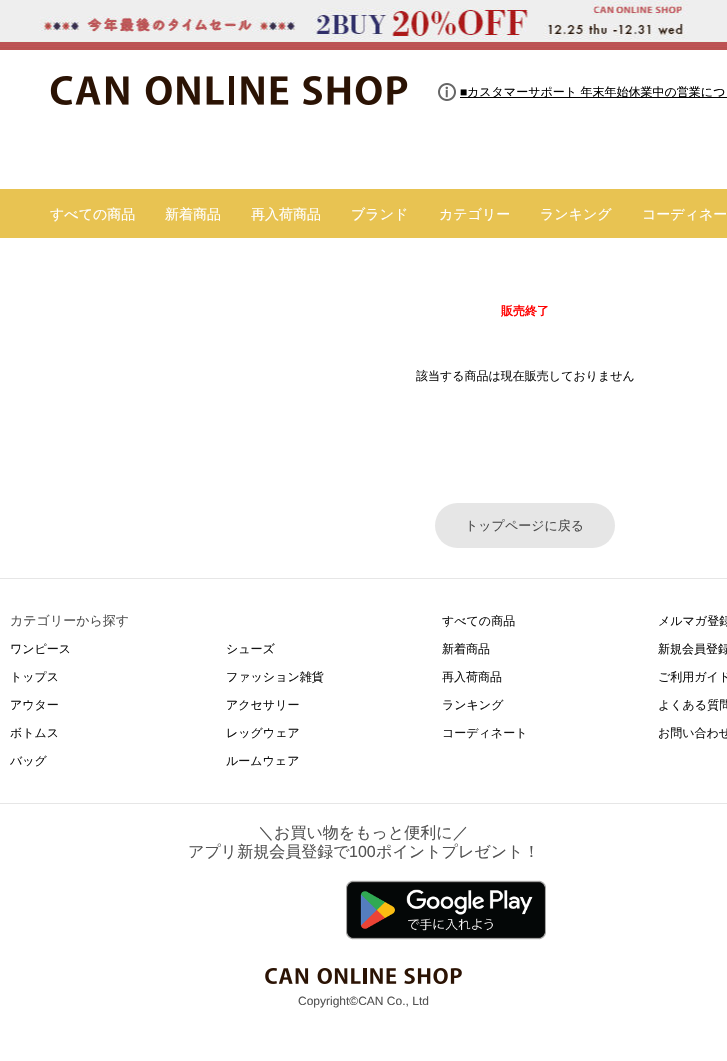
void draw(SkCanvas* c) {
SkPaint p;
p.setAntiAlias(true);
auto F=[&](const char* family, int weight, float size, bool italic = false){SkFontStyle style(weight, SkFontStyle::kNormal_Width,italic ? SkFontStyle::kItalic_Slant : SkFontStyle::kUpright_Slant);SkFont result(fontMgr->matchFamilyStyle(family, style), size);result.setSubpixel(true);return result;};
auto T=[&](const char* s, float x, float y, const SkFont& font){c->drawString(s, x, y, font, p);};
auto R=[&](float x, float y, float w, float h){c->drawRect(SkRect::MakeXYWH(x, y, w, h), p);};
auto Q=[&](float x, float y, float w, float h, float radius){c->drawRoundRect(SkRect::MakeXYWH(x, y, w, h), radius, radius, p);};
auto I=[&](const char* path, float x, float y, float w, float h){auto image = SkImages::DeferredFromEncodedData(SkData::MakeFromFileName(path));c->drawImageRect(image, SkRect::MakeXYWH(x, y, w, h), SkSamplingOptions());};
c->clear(0xffffffff);
I("1.png",0,0,727,50);
I("2.png",50,76,358,29);
I("3.png",438,83,18,18);
auto f1 = F("Liberation Sans",400,12);
p.setColor(0xff000000);
T("■",460,96,f1);
R(460,97,267,1);
auto f2 = F("WenQuanYi Zen Hei",500,12);
T("カスタマーサポート 年末年始休業中の営業につ",467,96,f2);
p.setColor(0xffe8c352);
R(0,189,727,49);
auto f3 = F("WenQuanYi Zen Hei",500,14);
p.setColor(0xffffffff);
T("すべての商品",50,219,f3);
T("新着商品",165,219,f3);
T("再入荷商品",251,219,f3);
T("ブランド",351,219,f3);
T("カテゴリー",439,219,f3);
T("ランキング",540,219,f3);
T("コーディネー",642,219,f3);
auto f4 = F("WenQuanYi Zen Hei",700,12);
p.setColor(0xffff0000);
T("販売終了",501,315,f4);
p.setColor(0xff131313);
T("該当する商品は現在販売しておりません",416,380,f2);
p.setColor(0xffe6e6e6);
Q(435,503,180,45,22.5);
auto f5 = F("WenQuanYi Zen Hei",500,13);
p.setColor(0xff4d4d4d);
T("トップページに戻る",465,530,f5);
p.setColor(0xffe6e6e6);
R(0,578,727,1);
R(0,803,727,1);
p.setColor(0xff535353);
T("カテゴリーから探す",10,625,f5);
p.setColor(0xff131313);
T("すべての商品",442,625,f2);
T("新着商品",442,653,f2);
T("再入荷商品",442,681,f2);
T("ランキング",442,709,f2);
T("コーディネート",442,737,f2);
T("ワンピース",10,653,f2);
T("トップス",10,681,f2);
T("アウター",10,709,f2);
T("ボトムス",10,737,f2);
T("バッグ",10,765,f2);
T("シューズ",226,653,f2);
T("ファッション雑貨",226,681,f2);
T("アクセサリー",226,709,f2);
T("レッグウェア",226,737,f2);
T("ルームウェア",226,765,f2);
T("メルマガ登録",658,625,f2);
T("新規会員登録",658,653,f2);
T("ご利用ガイド",658,681,f2);
T("よくある質問",658,709,f2);
T("お問い合わせ",658,737,f2);
auto f6 = F("WenQuanYi Zen Hei",500,16);
p.setColor(0xff535353);
T("＼お買い物をもっと便利に／",258,838,f6);
T("アプリ新規会員登録で",188,857,f6);
auto f7 = F("Liberation Sans",400,16);
T("100",349,857,f7);
T("ポイントプレゼント！",376,857,f6);
I("4.png",346,880,200,60);
I("5.png",265,968,197,16);
T("Copyright©CAN Co., Ltd",298,1005,f1);
}
